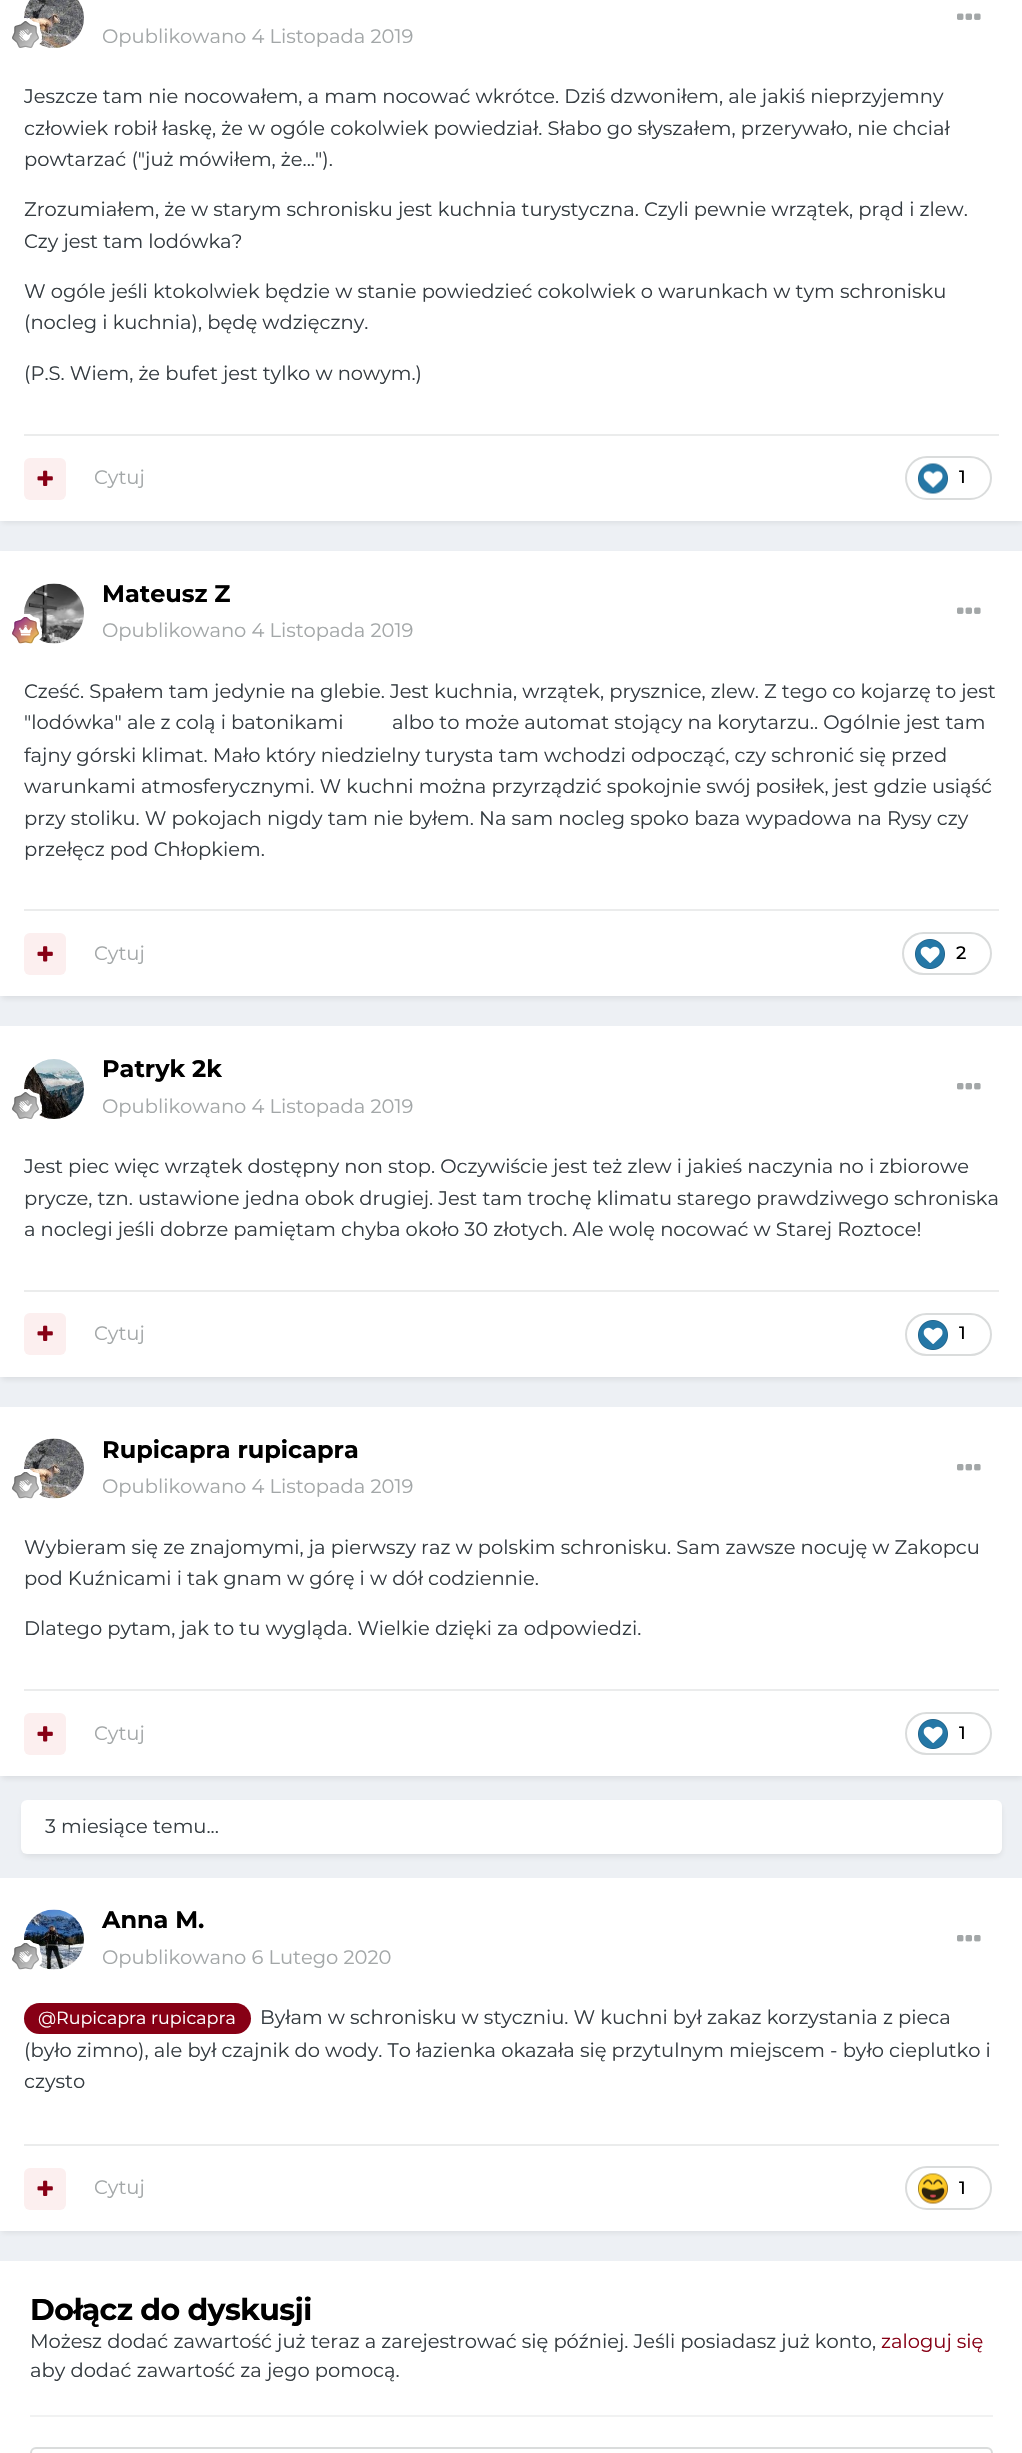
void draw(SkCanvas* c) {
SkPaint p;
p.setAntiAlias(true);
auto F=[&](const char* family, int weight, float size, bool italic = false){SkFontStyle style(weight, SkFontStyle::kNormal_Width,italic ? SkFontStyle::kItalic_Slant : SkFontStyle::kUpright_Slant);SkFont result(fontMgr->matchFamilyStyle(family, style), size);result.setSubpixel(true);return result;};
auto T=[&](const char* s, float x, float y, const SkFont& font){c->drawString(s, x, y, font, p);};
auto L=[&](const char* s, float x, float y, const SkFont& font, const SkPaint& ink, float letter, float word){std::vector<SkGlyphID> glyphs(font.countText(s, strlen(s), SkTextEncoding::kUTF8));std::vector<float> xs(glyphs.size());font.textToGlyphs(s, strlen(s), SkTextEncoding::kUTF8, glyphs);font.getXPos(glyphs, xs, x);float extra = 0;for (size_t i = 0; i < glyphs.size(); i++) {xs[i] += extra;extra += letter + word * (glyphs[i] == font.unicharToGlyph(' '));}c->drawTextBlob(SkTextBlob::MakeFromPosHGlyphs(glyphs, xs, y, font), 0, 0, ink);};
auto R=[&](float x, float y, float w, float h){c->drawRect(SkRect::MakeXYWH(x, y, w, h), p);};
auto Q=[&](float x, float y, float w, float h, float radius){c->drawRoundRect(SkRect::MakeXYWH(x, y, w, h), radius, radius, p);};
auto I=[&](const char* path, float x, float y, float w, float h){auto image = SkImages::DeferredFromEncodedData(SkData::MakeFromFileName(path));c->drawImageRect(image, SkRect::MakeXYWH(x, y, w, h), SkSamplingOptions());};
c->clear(0xffedf0f4);
p.setColor(0x1a141414);
p.setMaskFilter(SkMaskFilter::MakeBlur(kNormal_SkBlurStyle, 3));
c->drawRect(SkRect::MakeXYWH(2,-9,1020,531),p);
p.setMaskFilter(nullptr);
p.setColor(0xffffffff);
R(0,0,1022,521);
I("1.png",24,0,60,48);
I("2.png",12,18,30,30);
auto f1 = F("Montserrat",400,19.5);
p.setColor(0xffa3a7a8);
T("Opublikowano 4 Listopada 2019",102,43,f1);
I("3.png",957,13,24,7);
p.setColor(0xff353c41);
T("Jeszcze tam nie nocowałem, a mam nocować wkrótce. Dziś dzwoniłem, ale jakiś nieprzyjemny",24,103,f1);
T("człowiek robił łaskę, że w ogóle cokolwiek powiedział. Słabo go słyszałem, przerywało, nie chciał",24,135,f1);
T("powtarzać (\"już mówiłem, że...\").",24,166,f1);
T("Zrozumiałem, że w starym schronisku jest kuchnia turystyczna. Czyli pewnie wrzątek, prąd i zlew.",24,216,f1);
T("Czy jest tam lodówka?",24,248,f1);
T("W ogóle jeśli ktokolwiek będzie w stanie powiedzieć cokolwiek o warunkach w tym schronisku",24,298,f1);
T("(nocleg i kuchnia), będę wdzięczny.",24,329,f1);
T("(P.S. Wiem, że bufet jest tylko w nowym.)",24,380,f1);
p.setColor(0xffebecec);
R(24,434,975,2);
p.setColor(0xfffcefef);
Q(24,458,42,42,6);
I("4.png",37,470,16,16);
p.setColor(0xffa3a7a8);
T("Cytuj",94,484,f1);
p.setStroke(true);
p.setStrokeWidth(2);
p.setColor(0xffdadcdc);
c->drawRoundRect(SkRect::MakeXYWH(906,457,85,42),21,21,p);
I("5.png",918,463,30,31);
auto f2 = F("Montserrat",500,18);
p.setStroke(false);
p.setColor(0xff000000);
T("1",959,483,f2);
p.setColor(0x1a141414);
p.setMaskFilter(SkMaskFilter::MakeBlur(kNormal_SkBlurStyle, 3));
c->drawRect(SkRect::MakeXYWH(2,555,1020,443),p);
p.setMaskFilter(nullptr);
p.setColor(0xffffffff);
R(0,551,1022,445);
I("6.png",24,583,60,61);
I("7.png",12,614,30,30);
auto f3 = F("Montserrat",700,24);
p.setColor(0xff000000);
T("Mateusz Z",102,602,f3);
p.setColor(0xffa3a7a8);
T("Opublikowano 4 Listopada 2019",102,637,f1);
I("3.png",957,607,24,7);
p.setColor(0xff353c41);
T("Cześć. Spałem tam jedynie na glebie. Jest kuchnia, wrzątek, prysznice, zlew. Z tego co kojarzę to jest",24,698,f1);
T("\"lodówka\" ale z colą i batonikami",24,729,f1);
T("albo to może automat stojący na korytarzu.. Ogólnie jest tam",392,729,f1);
T("fajny górski klimat. Mało który niedzielny turysta tam wchodzi odpocząć, czy schronić się przed",24,762,f1);
T("warunkami atmosferycznymi. W kuchni można przyrządzić spokojnie swój posiłek, jest gdzie usiąść",24,793,f1);
T("przy stoliku. W pokojach nigdy tam nie byłem. Na sam nocleg spoko baza wypadowa na Rysy czy",24,825,f1);
T("przełęcz pod Chłopkiem.",24,856,f1);
p.setColor(0xffebecec);
R(24,909,975,2);
p.setColor(0xfffcefef);
Q(24,933,42,42,6);
I("8.png",37,946,16,16);
p.setColor(0xffa3a7a8);
T("Cytuj",94,960,f1);
p.setStroke(true);
p.setColor(0xffdadcdc);
c->drawRoundRect(SkRect::MakeXYWH(903,933,88,41),20.5,20.5,p);
I("9.png",915,939,30,30);
p.setStroke(false);
p.setColor(0xff000000);
T("2",956,959,f2);
p.setColor(0x1a141414);
p.setMaskFilter(SkMaskFilter::MakeBlur(kNormal_SkBlurStyle, 3));
c->drawRect(SkRect::MakeXYWH(2,1031,1020,348),p);
p.setMaskFilter(nullptr);
p.setColor(0xffffffff);
R(0,1026,1022,351);
I("10.png",24,1059,60,60);
I("11.png",12,1089,30,30);
p.setColor(0xff000000);
T("Patryk 2k",102,1077,f3);
p.setColor(0xffa3a7a8);
T("Opublikowano 4 Listopada 2019",102,1113,f1);
I("12.png",957,1083,24,7);
p.setColor(0xff353c41);
T("Jest piec więc wrzątek dostępny non stop. Oczywiście jest też zlew i jakieś naczynia no i zbiorowe",24,1173,f1);
T("prycze, tzn. ustawione jedna obok drugiej. Jest tam trochę klimatu starego prawdziwego schroniska",24,1205,f1);
T("a noclegi jeśli dobrze pamiętam chyba około 30 złotych. Ale wolę nocować w Starej Roztoce!",24,1236,f1);
p.setColor(0xffebecec);
R(24,1290,975,2);
p.setColor(0xfffcefef);
Q(24,1313,42,42,6);
I("4.png",37,1325,16,16);
p.setColor(0xffa3a7a8);
T("Cytuj",94,1340,f1);
p.setStroke(true);
p.setColor(0xffdadcdc);
c->drawRoundRect(SkRect::MakeXYWH(906,1314,85,41),20.5,20.5,p);
I("9.png",918,1320,30,30);
p.setStroke(false);
p.setColor(0xff000000);
T("1",959,1339,f2);
p.setColor(0x1a141414);
p.setMaskFilter(SkMaskFilter::MakeBlur(kNormal_SkBlurStyle, 3));
c->drawRect(SkRect::MakeXYWH(2,1412,1020,366),p);
p.setMaskFilter(nullptr);
p.setColor(0xffffffff);
R(0,1407,1022,369);
I("13.png",24,1438,60,61);
I("14.png",12,1469,30,30);
p.setColor(0xff000000);
T("Rupicapra rupicapra",102,1458,f3);
p.setColor(0xffa3a7a8);
T("Opublikowano 4 Listopada 2019",102,1493,f1);
I("12.png",957,1464,24,7);
p.setColor(0xff353c41);
T("Wybieram się ze znajomymi, ja pierwszy raz w polskim schronisku. Sam zawsze nocuję w Zakopcu",24,1554,f1);
T("pod Kuźnicami i tak gnam w górę i w dół codziennie.",24,1585,f1);
T("Dlatego pytam, jak to tu wygląda. Wielkie dzięki za odpowiedzi.",24,1635,f1);
p.setColor(0xffebecec);
R(24,1689,975,2);
p.setColor(0xfffcefef);
Q(24,1713,42,42,6);
I("8.png",37,1726,16,16);
p.setColor(0xffa3a7a8);
T("Cytuj",94,1740,f1);
p.setStroke(true);
p.setColor(0xffdadcdc);
c->drawRoundRect(SkRect::MakeXYWH(906,1713,85,41),20.5,20.5,p);
I("9.png",918,1719,30,30);
p.setStroke(false);
p.setColor(0xff000000);
T("1",959,1739,f2);
p.setColor(0x1a141414);
p.setMaskFilter(SkMaskFilter::MakeBlur(kNormal_SkBlurStyle, 3));
c->drawRoundRect(SkRect::MakeXYWH(23,1805,978,51),5,5,p);
p.setMaskFilter(nullptr);
p.setColor(0xffffffff);
Q(21,1800,981,54,6);
p.setColor(0xff353c41);
T("3 miesiące temu...",45,1833,f1);
p.setColor(0x1a141414);
p.setMaskFilter(SkMaskFilter::MakeBlur(kNormal_SkBlurStyle, 3));
c->drawRect(SkRect::MakeXYWH(2,1883,1020,349),p);
p.setMaskFilter(nullptr);
p.setColor(0xffffffff);
R(0,1878,1022,353);
I("15.png",24,1909,60,61);
I("16.png",12,1940,30,30);
p.setColor(0xff000000);
T("Anna M.",102,1928,f3);
p.setColor(0xffa3a7a8);
T("Opublikowano 6 Lutego 2020",102,1964,f1);
I("12.png",957,1935,24,7);
p.setColor(0xff870015);
Q(24,2003,227,31,15.5);
auto f4 = F("Montserrat",400,17.5);
p.setColor(0xffffffff);
T("@Rupicapra rupicapra",38,2024,f4);
p.setColor(0xff353c41);
T("Byłam w schronisku w styczniu. W kuchni był zakaz korzystania z pieca",260,2024,f1);
T("(było zimno), ale był czajnik do wody. To łazienka okazała się przytulnym miejscem - było cieplutko i",24,2057,f1);
T("czysto",24,2088,f1);
p.setColor(0xffebecec);
R(24,2144,975,2);
p.setColor(0xfffcefef);
Q(24,2168,42,42,6);
I("4.png",37,2180,16,16);
p.setColor(0xffa3a7a8);
T("Cytuj",94,2194,f1);
p.setStroke(true);
p.setColor(0xffdadcdc);
c->drawRoundRect(SkRect::MakeXYWH(906,2167,85,42),21,21,p);
I("17.png",918,2173,30,31);
p.setStroke(false);
p.setColor(0xff000000);
T("1",959,2194,f2);
p.setColor(0xffffffff);
R(0,2261,1022,192);
p.setColor(0xfff1f2f2);
R(30,2415,963,2);
auto f5 = F("Montserrat",700,30);
p.setColor(0xff000000);
L("Dołącz do dyskusji",30,2320,f5,p,-.6,0);
p.setColor(0xff353c41);
T("Możesz dodać zawartość już teraz a zarejestrować się później. Jeśli posiadasz już konto,",30,2348,f1);
p.setColor(0xff870015);
T("zaloguj się",881,2348,f1);
p.setColor(0xff353c41);
T("aby dodać zawartość za jego pomocą.",30,2377,f1);
p.setStroke(true);
p.setColor(0xffdadcdc);
c->drawRoundRect(SkRect::MakeXYWH(31,2448,961,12),5,5,p);
}
